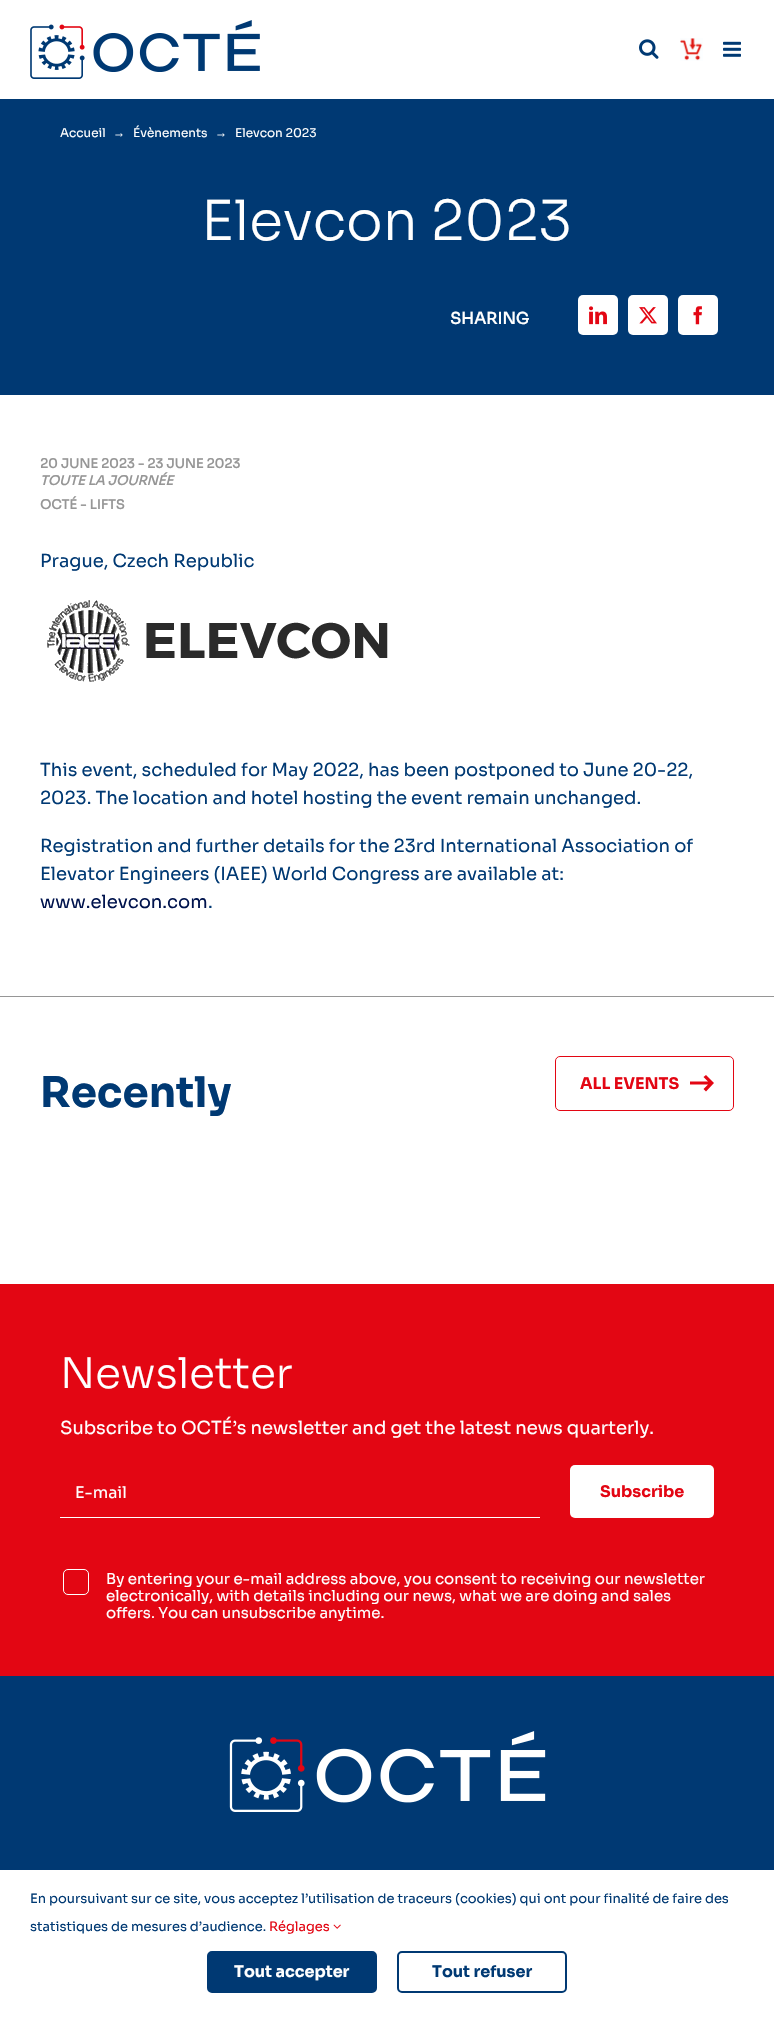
void draw(SkCanvas* c) {
SkPaint p;
p.setAntiAlias(true);
auto F=[&](const char* family, int weight, float size, bool italic = false){SkFontStyle style(weight, SkFontStyle::kNormal_Width,italic ? SkFontStyle::kItalic_Slant : SkFontStyle::kUpright_Slant);SkFont result(fontMgr->matchFamilyStyle(family, style), size);result.setSubpixel(true);return result;};
auto T=[&](const char* s, float x, float y, const SkFont& font){c->drawString(s, x, y, font, p);};
auto R=[&](float x, float y, float w, float h){c->drawRect(SkRect::MakeXYWH(x, y, w, h), p);};
auto Q=[&](float x, float y, float w, float h, float radius){c->drawRoundRect(SkRect::MakeXYWH(x, y, w, h), radius, radius, p);};
auto I=[&](const char* path, float x, float y, float w, float h){auto image = SkImages::DeferredFromEncodedData(SkData::MakeFromFileName(path));c->drawImageRect(image, SkRect::MakeXYWH(x, y, w, h), SkSamplingOptions());};
auto P=[&](const char* data, bool evenOdd = false){SkPath result = *SkParsePath::FromSVGString(data);if (evenOdd) result.setFillType(SkPathFillType::kEvenOdd);return result;};
c->clear(0xffffffff);
I("1.png",30,20,230,59);
I("2.png",639,39,20,20);
I("3.png",680,38,23,23);
I("4.png",723,41,18,16);
p.setColor(0xff003973);
R(0,99,774,296);
auto f1 = F("Sora",400,12);
p.setColor(0xffffffff);
T("Accueil",60,137,f1);
auto f2 = F("Liberation Serif",400,12);
T("→",113,137,f2);
T("Évènements",133,137,f1);
T("→",215,137,f2);
T("Elevcon 2023",235,137,f1);
auto f3 = F("Sora",300,55);
T("Elevcon 2023",201,240,f3);
auto f4 = F("Sora",700,16);
T("SHARING",450,324,f4);
Q(578,295,40,40,5);
I("5.png",589,306,18,19);
Q(628,295,40,40,5);
I("6.png",639,307,18,17);
Q(678,295,40,40,5);
I("7.png",693,306,9,19);
auto f5 = F("Sora",700,13);
p.setColor(0xff969696);
T("20 JUNE 2023 - 23 JUNE 2023",40,468,f5);
auto f6 = F("Sora",700,13,true);
T("TOUTE LA JOURNÉE",40,485,f6);
T("OCTÉ - LIFTS",40,509,f5);
auto f7 = F("Sora",400,18);
p.setColor(0xff003973);
T("Prague, Czech Republic",40,567,f7);
I("8.png",47,600,341,82);
T("This event, scheduled for May 2022, has been postponed to June 20-22,",40,776,f7);
T("2023. The location and hotel hosting the event remain unchanged.",40,804,f7);
T("Registration and further details for the 23rd International Association of",40,852,f7);
T("Elevator Engineers (IAEE) World Congress are available at:",40,880,f7);
p.setColor(0xff00134d);
T("www.elevcon.com",40,908,f7);
p.setColor(0xff003973);
T(".",208,908,f7);
p.setColor(0xff969696);
R(0,996,774,1);
auto f8 = F("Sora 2",700,42);
p.setColor(0xff003973);
T("Recently",40,1107,f8);
p.setStroke(true);
p.setStrokeWidth(1);
p.setColor(0xffe30613);
c->drawRoundRect(SkRect::MakeXYWH(555.5,1056.5,178,54),4.5,4.5,p);
auto f9 = F("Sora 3",700,16);
p.setStroke(false);
T("ALL EVENTS",580,1089,f9);
c->drawPath(P("M706 1091.5l8-8.5l-8-8l-2.5 2l4.5 4.5h-18v3h18l-4.5 4.5z"),p);
R(0,1284,774,392);
auto f10 = F("Sora",300,42);
p.setColor(0xffffffff);
T("Newsletter",60,1388,f10);
T("Subscribe to OCTÉ’s newsletter and get the latest news quarterly.",60,1434,f7);
R(60,1517,480,1);
auto f11 = F("Sora",400,16);
T("E-mail",75,1498,f11);
Q(570,1465,144,53,5);
p.setColor(0xffe30613);
T("Subscribe",600,1497,f9);
p.setStroke(true);
p.setColor(0xff767676);
c->drawRoundRect(SkRect::MakeXYWH(64.5,1570.5,23,23),1.5,1.5,p);
p.setStroke(false);
p.setColor(0xffe30613);
c->drawRoundRect(SkRect::MakeXYWH(63.5,1569.5,25,25),4.5,4.5,p);
p.setStroke(true);
p.setColor(0xffffffff);
c->drawRoundRect(SkRect::MakeXYWH(63.5,1569.5,25,25),4.5,4.5,p);
auto f12 = F("Sora",400,15);
p.setStroke(false);
T("By entering your e-mail address above, you consent to receiving our newsletter",106,1584,f12);
T("electronically, with details including our news, what we are doing and sales",106,1601,f12);
T("offers. You can unsubscribe anytime.",106,1618,f12);
p.setColor(0xff003973);
R(0,1676,774,194);
I("9.png",229,1731,317,81);
auto f13 = F("Sora",400,13);
T("En poursuivant sur ce site, vous acceptez l’utilisation de traceurs (cookies) qui ont pour finalité de faire des",30,1903,f13);
T("statistiques de mesures d’audience.",30,1931,f13);
p.setColor(0xffe30613);
T("Réglages",269,1931,f13);
I("10.png",333,1924,8,5);
p.setColor(0xff003973);
c->drawRoundRect(SkRect::MakeXYWH(208,1952,168,40),4,4,p);
p.setStroke(true);
p.setStrokeWidth(2);
c->drawRoundRect(SkRect::MakeXYWH(208,1952,168,40),4,4,p);
p.setStroke(false);
p.setColor(0xffffffff);
T("Tout accepter",234,1977,f9);
p.setStroke(true);
p.setColor(0xff003973);
c->drawRoundRect(SkRect::MakeXYWH(398,1952,168,40),4,4,p);
p.setStroke(false);
T("Tout refuser",432,1977,f9);
}
